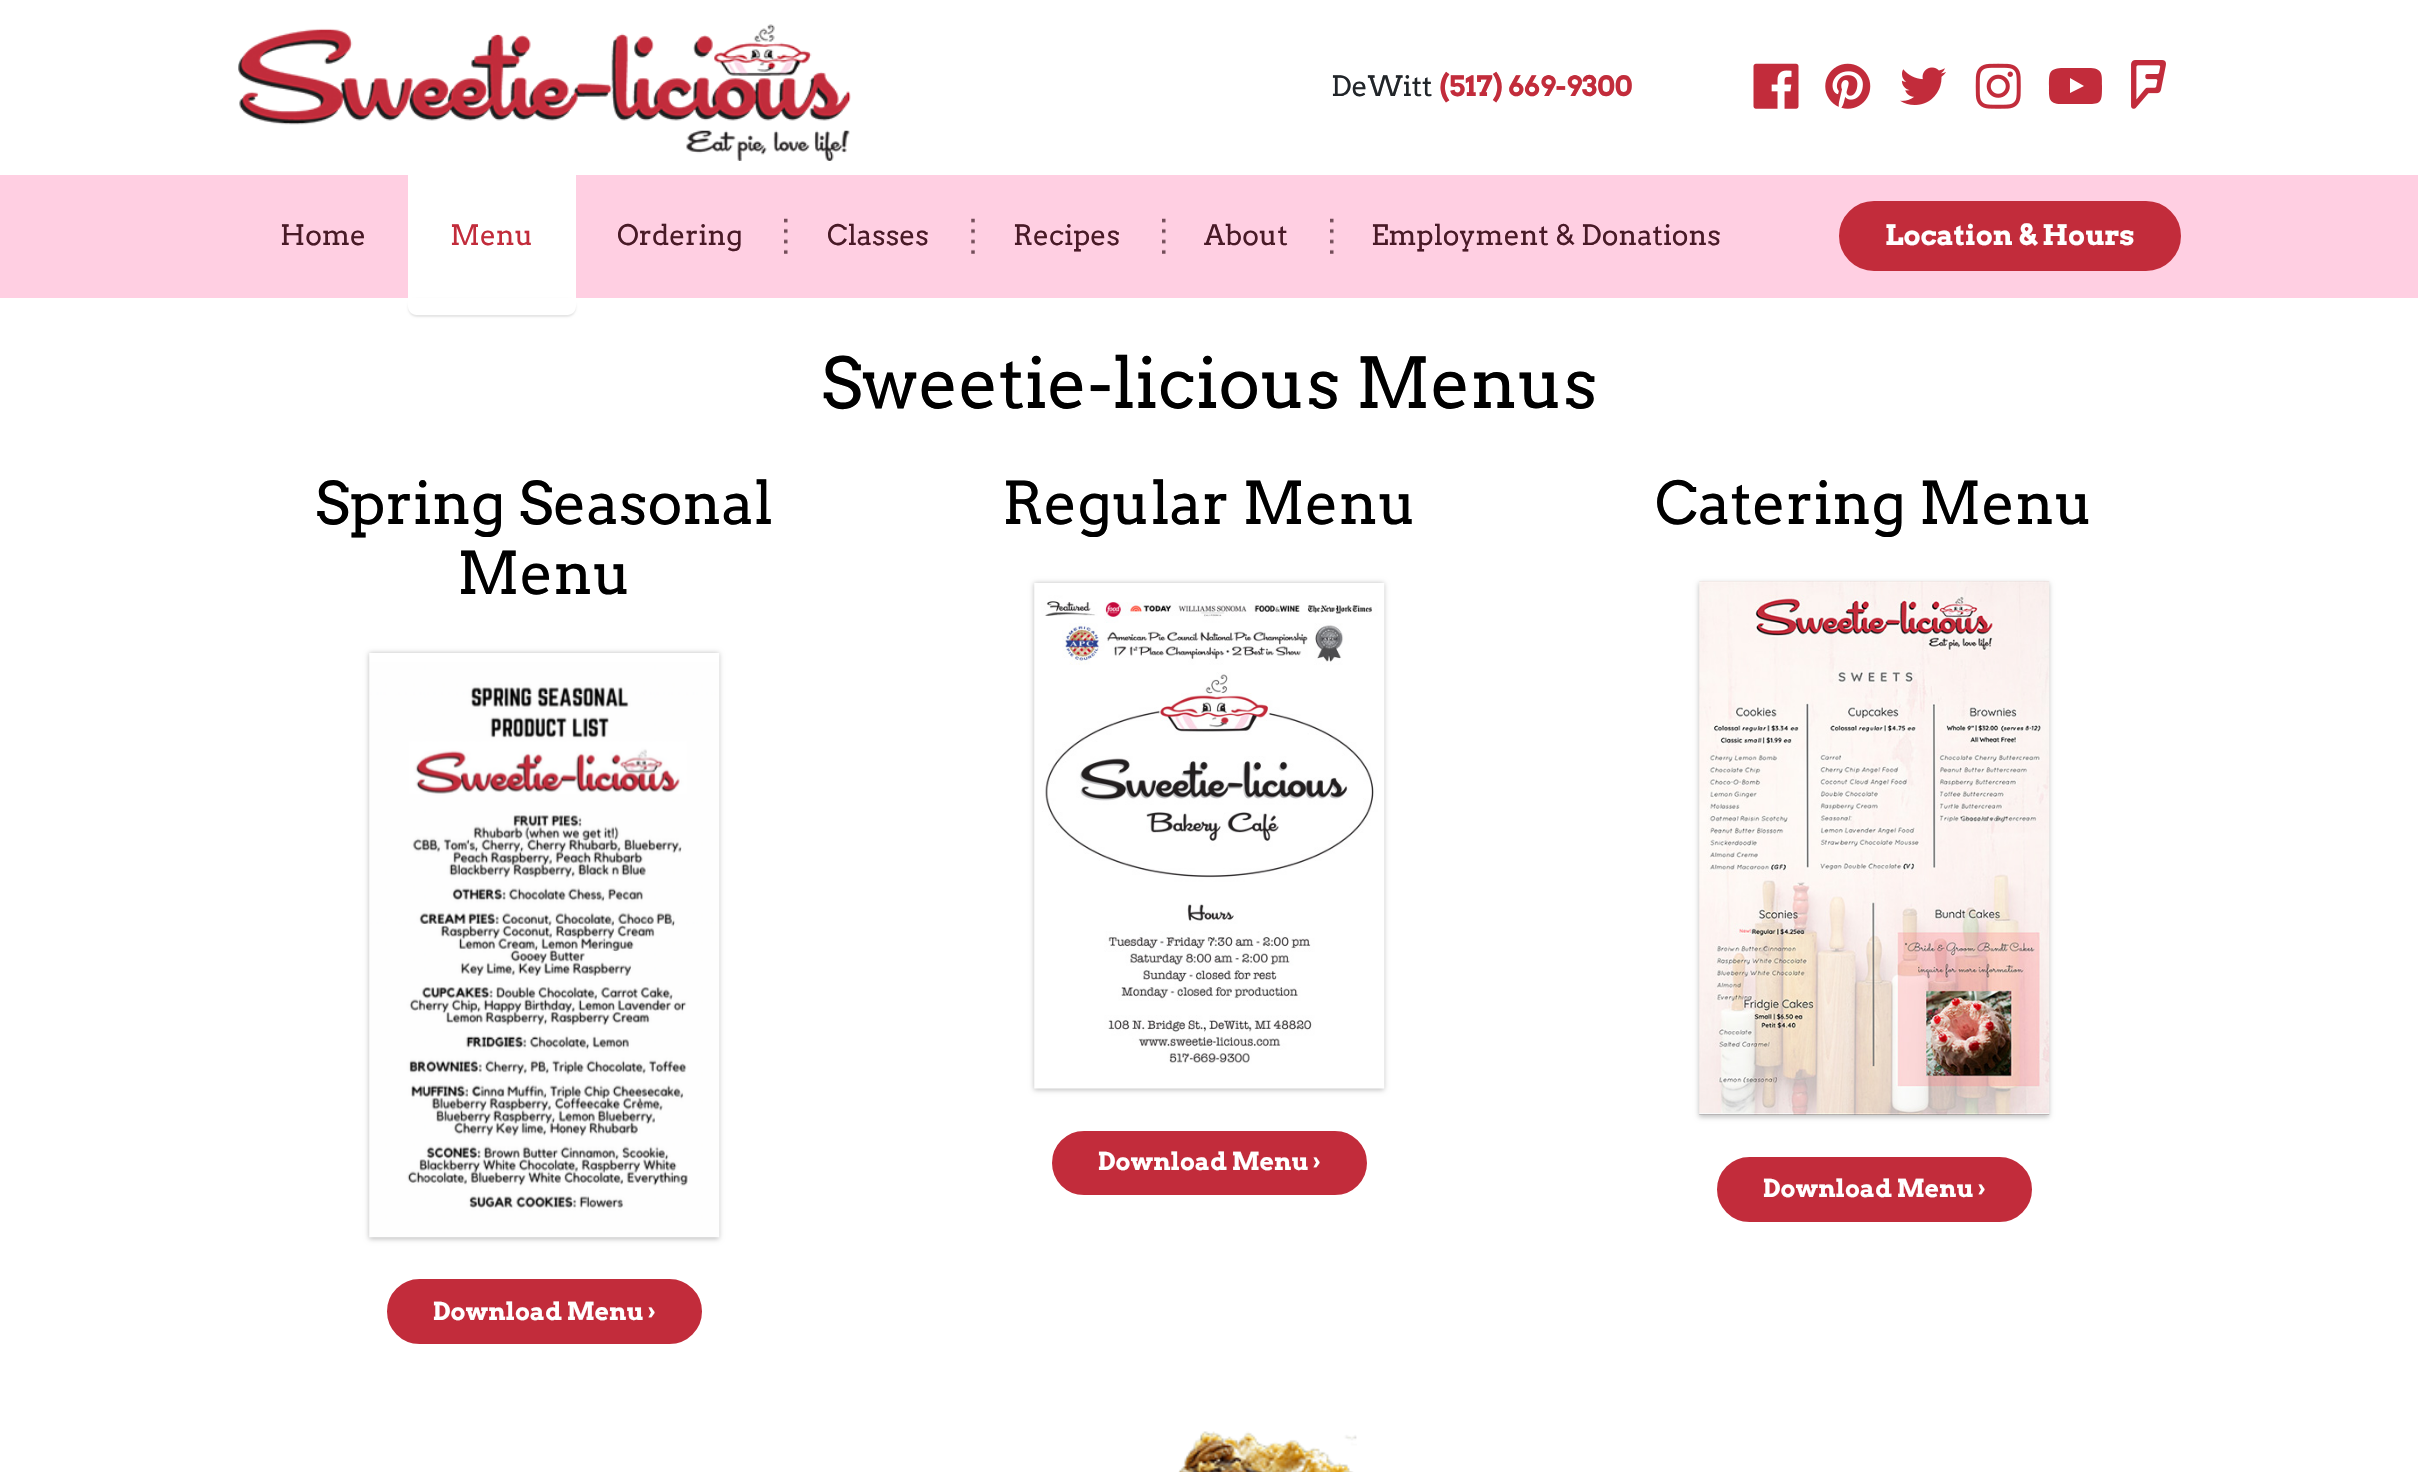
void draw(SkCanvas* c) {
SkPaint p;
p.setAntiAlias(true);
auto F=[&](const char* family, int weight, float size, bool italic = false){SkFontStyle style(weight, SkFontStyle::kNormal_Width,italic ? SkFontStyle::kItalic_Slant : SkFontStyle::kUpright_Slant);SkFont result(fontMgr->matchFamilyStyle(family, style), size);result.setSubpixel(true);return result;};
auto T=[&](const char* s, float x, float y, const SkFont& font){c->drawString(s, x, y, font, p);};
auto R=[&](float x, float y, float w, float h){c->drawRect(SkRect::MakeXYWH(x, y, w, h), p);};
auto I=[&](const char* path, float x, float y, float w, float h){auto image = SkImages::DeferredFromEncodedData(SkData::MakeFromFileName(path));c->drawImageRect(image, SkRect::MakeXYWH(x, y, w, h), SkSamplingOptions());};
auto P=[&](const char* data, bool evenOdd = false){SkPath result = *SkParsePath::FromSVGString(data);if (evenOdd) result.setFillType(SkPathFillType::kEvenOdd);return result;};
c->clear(0xffffffff);
I("1.png",238,24,613,137);
auto f1 = F("Arvo",400,28);
p.setColor(0xff212529);
T("DeWitt",1331,96,f1);
auto f2 = F("Arvo",700,28);
p.setColor(0xffc22c3b);
T("(517) 669-9300",1439,96,f2);
I("2.png",1753,63,46,46);
I("3.png",1825,63,46,46);
I("4.png",1900,67,46,38);
I("5.png",1975,63,46,46);
c->drawPath(P("M2070 93l14-7l-14-8zm6-25h15c12 1 11 7 11 18c0 14 0 18-12 18h-29c-13 0-12-7-12-18c0-13 0-17 12-18z"),p);
I("6.png",2131,60,35,49);
p.setColor(0xffffcfe2);
R(0,175,2418,123);
p.setColor(0xff491a27);
T("Home",280,245,f1);
p.setColor(0xffffffff);
R(408,175,168,123);
p.setColor(0xffc22c3b);
T("Menu",450,245,f1);
p.setColor(0x1a000000);
p.setMaskFilter(SkMaskFilter::MakeBlur(kNormal_SkBlurStyle, 1));
c->drawRoundRect(SkRect::MakeXYWH(408,299,168,18),9,9,p);
p.setMaskFilter(nullptr);
p.setColor(0xffffffff);
c->drawPath(P("M408 298h168v8.5c0 4.5-4 8.5-8.5 8.5h-151c-4.5 0-8.5-4-8.5-8.5z"),p);
p.setColor(0xff491a27);
T("Ordering",617,245,f1);
I("7.png",784,218,4,36);
T("Classes",827,245,f1);
I("8.png",971,218,4,36);
T("Recipes",1013,245,f1);
I("7.png",1162,218,4,36);
T("About",1204,245,f1);
I("7.png",1330,218,4,36);
T("Employment & Donations",1371,245,f1);
p.setColor(0xffc22c3b);
c->drawRoundRect(SkRect::MakeXYWH(1841,203,338,66),33,33,p);
p.setStroke(true);
p.setStrokeWidth(4);
c->drawRoundRect(SkRect::MakeXYWH(1841,203,338,66),33,33,p);
p.setStroke(false);
p.setColor(0xffffffff);
T("Location & Hours",1885,245,f2);
auto f3 = F("Arvo",400,70);
p.setColor(0xff000000);
T("Sweetie-licious Menus",821,408,f3);
auto f4 = F("Arvo",400,58.75);
T("Spring Seasonal",315,524,f4);
T("Menu",457,594,f4);
p.setColor(0x40000000);
p.setMaskFilter(SkMaskFilter::MakeBlur(kNormal_SkBlurStyle, 2.5));
c->drawRect(SkRect::MakeXYWH(369,653,350,586),p);
p.setMaskFilter(nullptr);
I("9.png",369,653,351,585);
p.setColor(0xffc22c3b);
c->drawRoundRect(SkRect::MakeXYWH(389,1281,311,61),30.5,30.5,p);
p.setStroke(true);
c->drawRoundRect(SkRect::MakeXYWH(389,1281,311,61),30.5,30.5,p);
auto f5 = F("Arvo",700,24.5);
p.setStroke(false);
p.setColor(0xffffffff);
T("Download Menu ›",433,1320,f5);
p.setColor(0xff000000);
T("Regular Menu",1002,524,f4);
p.setColor(0x40000000);
p.setMaskFilter(SkMaskFilter::MakeBlur(kNormal_SkBlurStyle, 2.5));
c->drawRect(SkRect::MakeXYWH(1034,583,350,507),p);
p.setMaskFilter(nullptr);
I("10.png",1034,583,351,506);
p.setColor(0xffc22c3b);
c->drawRoundRect(SkRect::MakeXYWH(1054,1133,311,60),30,30,p);
p.setStroke(true);
c->drawRoundRect(SkRect::MakeXYWH(1054,1133,311,60),30,30,p);
p.setStroke(false);
p.setColor(0xffffffff);
T("Download Menu ›",1098,1170,f5);
p.setColor(0xff000000);
T("Catering Menu",1655,524,f4);
p.setColor(0x40000000);
p.setMaskFilter(SkMaskFilter::MakeBlur(kNormal_SkBlurStyle, 2.5));
c->drawRect(SkRect::MakeXYWH(1699,583,350,534),p);
p.setMaskFilter(nullptr);
I("11.png",1699,581,351,534);
p.setColor(0xffc22c3b);
c->drawRoundRect(SkRect::MakeXYWH(1719,1159,311,61),30.5,30.5,p);
p.setStroke(true);
c->drawRoundRect(SkRect::MakeXYWH(1719,1159,311,61),30.5,30.5,p);
p.setStroke(false);
p.setColor(0xffffffff);
T("Download Menu ›",1763,1197,f5);
I("12.png",1178,1431,179,41);
}
